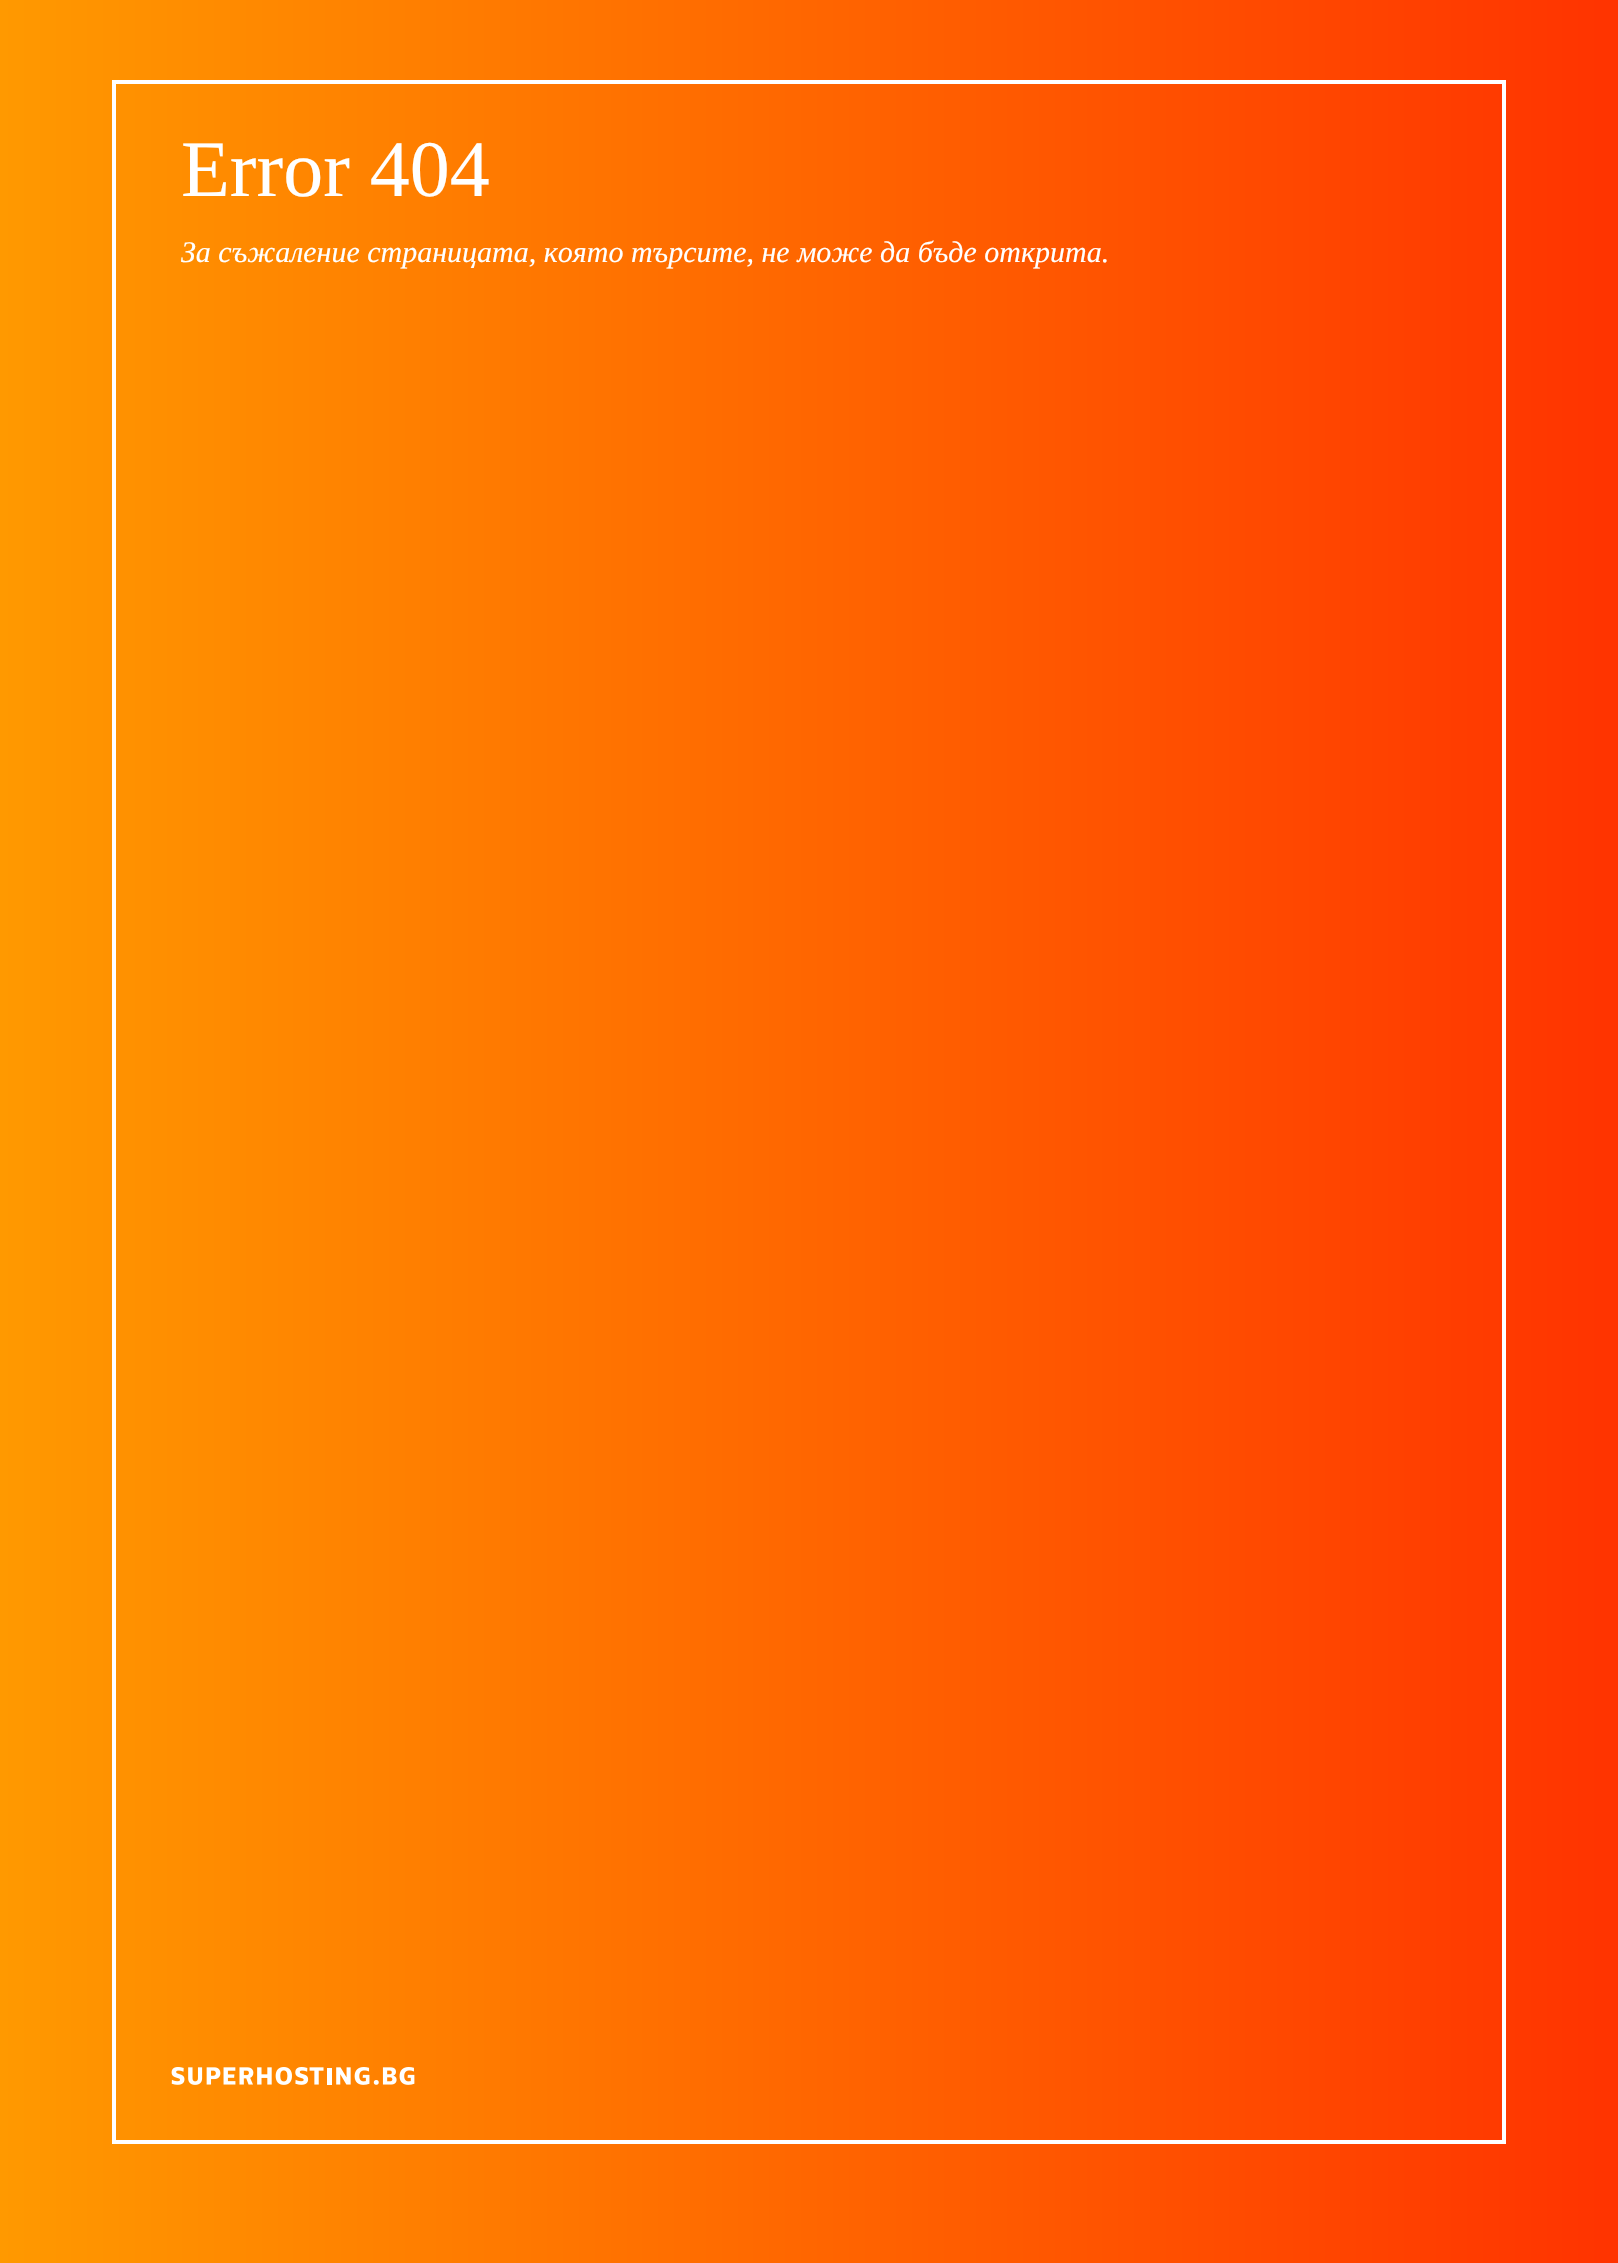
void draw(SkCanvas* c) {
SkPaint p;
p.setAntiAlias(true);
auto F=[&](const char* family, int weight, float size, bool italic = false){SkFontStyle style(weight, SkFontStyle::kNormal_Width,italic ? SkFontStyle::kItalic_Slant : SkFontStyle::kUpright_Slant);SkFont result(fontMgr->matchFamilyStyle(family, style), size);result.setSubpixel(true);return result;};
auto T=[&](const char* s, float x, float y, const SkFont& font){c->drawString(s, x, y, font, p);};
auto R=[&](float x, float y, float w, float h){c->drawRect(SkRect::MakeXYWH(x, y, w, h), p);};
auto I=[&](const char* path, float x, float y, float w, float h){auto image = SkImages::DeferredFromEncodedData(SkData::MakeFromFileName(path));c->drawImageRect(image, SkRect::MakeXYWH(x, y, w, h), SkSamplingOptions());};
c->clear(0xffffffff);
{
const SkColor colors[] = {0xffff9900,0xffff3300};
const float stops[] = {0,1};
const SkPoint ends[] = {{0,1132}, {1618,1132}};
p.setShader(SkGradientShader::MakeLinear(ends, colors, stops, 2, SkTileMode::kClamp));
p.setAlpha(255);
}
R(0,0,1618,2263);
p.setStroke(true);
p.setStrokeWidth(4);
p.setShader(nullptr);
p.setColor(0xffffffff);
c->drawRect(SkRect::MakeXYWH(114,82,1390,2060),p);
auto f1 = F("Liberation Serif",400,80);
p.setStroke(false);
T("Error 404",181,196,f1);
auto f2 = F("Liberation Serif",400,30,true);
T("За съжаление страницата, която търсите, не може да бъде открита.",181,262,f2);
I("1.png",171,2067,244,18);
}
